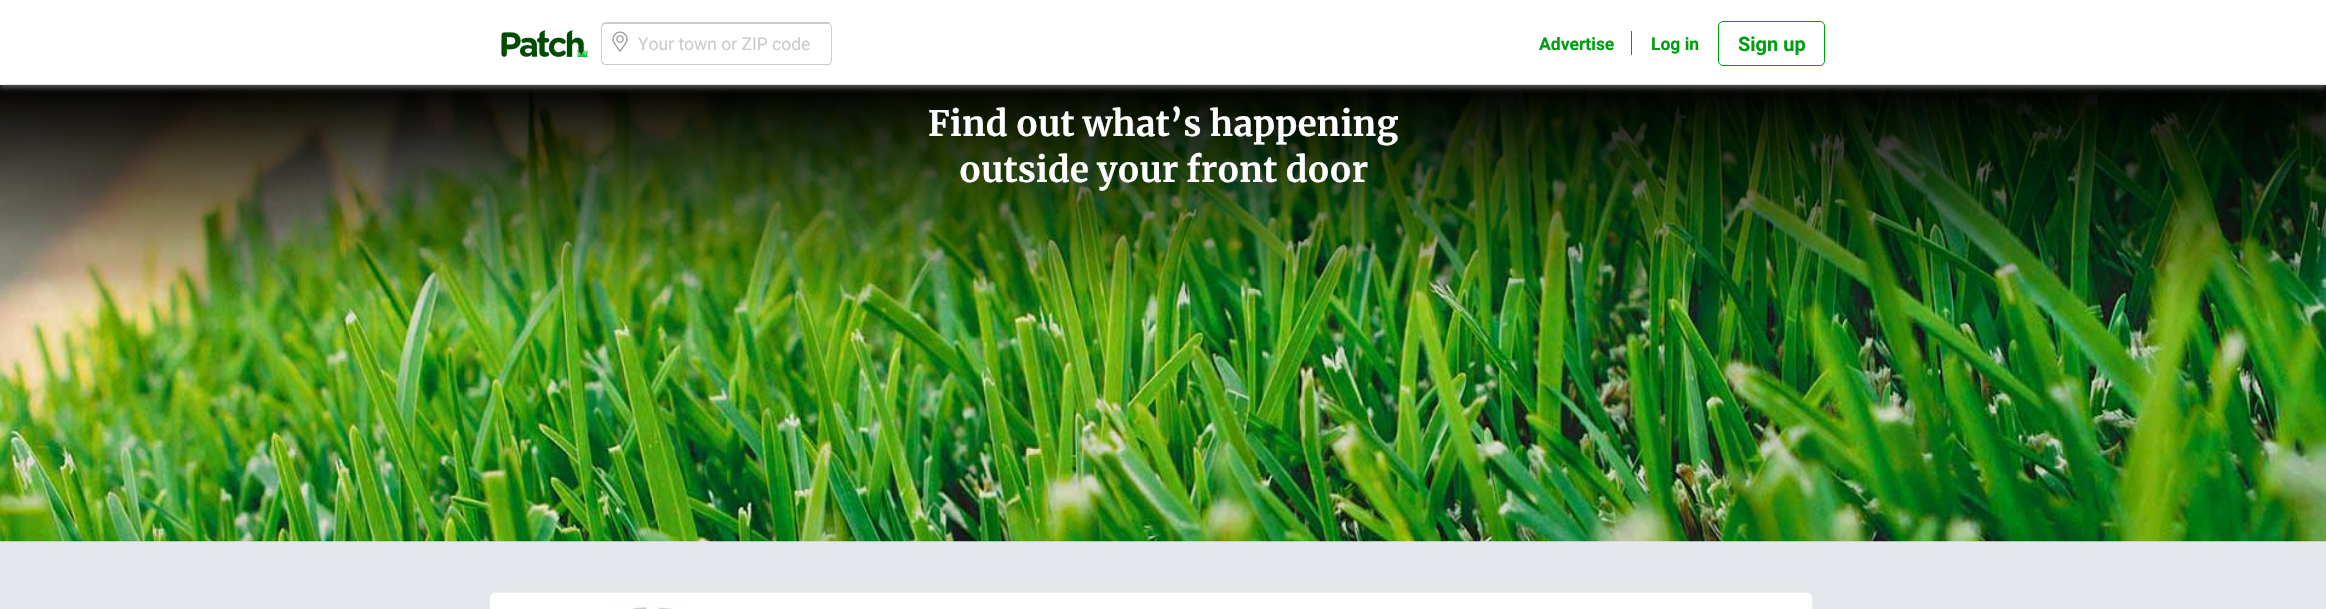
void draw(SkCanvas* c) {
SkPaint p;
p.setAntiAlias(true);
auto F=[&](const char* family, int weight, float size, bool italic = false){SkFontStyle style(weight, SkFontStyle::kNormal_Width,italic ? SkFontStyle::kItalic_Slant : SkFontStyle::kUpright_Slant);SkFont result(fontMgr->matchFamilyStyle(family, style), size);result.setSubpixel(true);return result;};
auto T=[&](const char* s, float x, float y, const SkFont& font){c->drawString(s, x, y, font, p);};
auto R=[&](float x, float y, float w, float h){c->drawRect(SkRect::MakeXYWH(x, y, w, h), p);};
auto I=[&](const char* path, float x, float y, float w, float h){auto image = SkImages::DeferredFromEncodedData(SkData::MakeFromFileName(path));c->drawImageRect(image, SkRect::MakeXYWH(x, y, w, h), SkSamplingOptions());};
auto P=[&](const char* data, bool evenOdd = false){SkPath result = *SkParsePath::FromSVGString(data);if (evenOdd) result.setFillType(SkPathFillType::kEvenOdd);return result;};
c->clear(0xffe4e7eb);
I("3.png",0,85,2326,457);
p.setColor(0x80a6a6a6);
p.setMaskFilter(SkMaskFilter::MakeBlur(kNormal_SkBlurStyle, 2.5));
c->drawRect(SkRect::MakeXYWH(0,3,2326,85),p);
p.setMaskFilter(nullptr);
p.setColor(0xffffffff);
R(0,0,2326,84);
p.setColor(0xffe9e9e9);
R(0,84,2326,1);
I("1.png",501,30,88,27);
p.setColor(0xffcccccc);
c->drawPath(P("M606 22h22v43h-22c-3 0-5-2-5-5v-32c0-3 2-6 5-6zm0 2h22v40h-22c-2 0-4-2-4-4v-32c0-3 2-4 4-4z",true),p);
I("2.png",612,31,16,21);
c->drawPath(P("M628 22h200c2 0 4 3 4 6v32c0 3-2 5-4 5h-200zm0 2h200c2 0 3 1 3 4v32c0 2-1 4-3 4h-200z",true),p);
auto f1 = F("Roboto",400,17.5);
T("Your town or ZIP code",638,50,f1);
auto f2 = F("Roboto",700,17.5);
p.setColor(0xff009e13);
T("Advertise",1539,50,f2);
R(1631,31,1,24);
T("Log in",1651,50,f2);
p.setStroke(true);
p.setStrokeWidth(1);
c->drawRoundRect(SkRect::MakeXYWH(1718.5,21.5,106,44),4.5,4.5,p);
auto f3 = F("Roboto",700,20);
p.setStroke(false);
T("Sign up",1738,51,f3);
auto f4 = F("Merriweather",700,35);
p.setColor(0xffffffff);
T("Find out what’s happening",928,136,f4);
T("outside your front door",959,182,f4);
p.setStroke(true);
p.setColor(0xffe9e9e9);
c->drawRoundRect(SkRect::MakeXYWH(489.5,591.5,1324,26),7.5,7.5,p);
I("4.png",490,592,1323,17);
}
